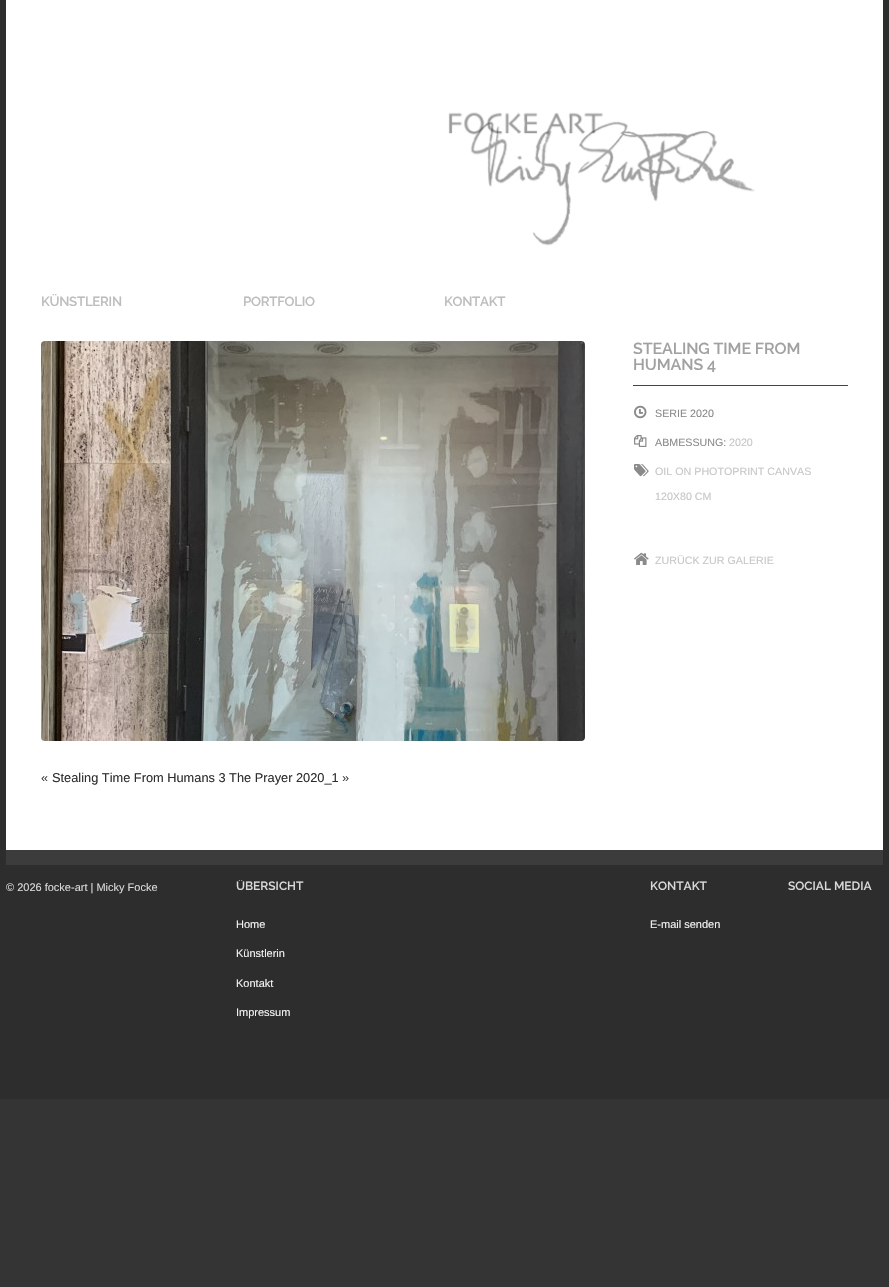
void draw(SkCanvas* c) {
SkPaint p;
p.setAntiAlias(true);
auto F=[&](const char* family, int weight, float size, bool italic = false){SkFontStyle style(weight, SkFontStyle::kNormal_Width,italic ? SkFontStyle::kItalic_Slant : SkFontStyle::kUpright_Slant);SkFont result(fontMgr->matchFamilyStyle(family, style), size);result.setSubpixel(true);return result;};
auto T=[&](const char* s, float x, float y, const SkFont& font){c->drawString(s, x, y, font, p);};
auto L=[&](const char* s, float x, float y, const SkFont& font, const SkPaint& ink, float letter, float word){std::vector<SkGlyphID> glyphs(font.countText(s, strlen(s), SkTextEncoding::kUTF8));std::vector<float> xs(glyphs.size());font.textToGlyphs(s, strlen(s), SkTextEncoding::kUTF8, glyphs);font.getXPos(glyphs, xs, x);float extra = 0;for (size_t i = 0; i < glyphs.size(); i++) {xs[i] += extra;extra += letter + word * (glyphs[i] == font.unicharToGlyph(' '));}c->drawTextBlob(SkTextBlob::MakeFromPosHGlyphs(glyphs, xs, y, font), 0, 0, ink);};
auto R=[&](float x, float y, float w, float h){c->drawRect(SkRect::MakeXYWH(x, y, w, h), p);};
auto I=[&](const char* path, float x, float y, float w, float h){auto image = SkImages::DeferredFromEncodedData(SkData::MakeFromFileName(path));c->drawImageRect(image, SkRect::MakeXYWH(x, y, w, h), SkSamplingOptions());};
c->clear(0xff343434);
p.setColor(0xff2d2d2d);
R(0,0,889,1099);
p.setColor(0xffffffff);
R(6,0,877,850);
I("1.png",448,112,307,134);
auto f1 = F("Raleway",600,13.25);
p.setColor(0xffbdbdbd);
L("KÜNSTLERIN",41,306,f1,p,-.25,0);
L("PORTFOLIO",243,306,f1,p,-.25,0);
L("KONTAKT",444,306,f1,p,-.25,0);
p.setColor(0xff454545);
R(633,385,215,1);
auto f2 = F("Raleway",600,16);
p.setColor(0xffa1a1a1);
L("STEALING TIME FROM",633,354,f2,p,-.1,0);
L("HUMANS 4",633,370,f2,p,-.1,0);
I("2.png",634,405,13,14);
auto f3 = F("Liberation Sans",400,10.7);
p.setColor(0xff8b898b);
T("SERIE 2020",655,417,f3);
I("3.png",634,435,13,12);
T("ABMESSUNG:",655,446,f3);
p.setColor(0xffc7c7c7);
T("2020",729,446,f3);
I("4.png",634,464,15,13);
T("OIL ON PHOTOPRINT CANVAS",655,475,f3);
T("120X80 CM",655,500,f3);
I("5.png",634,552,15,13);
T("ZURÜCK ZUR GALERIE",655,564,f3);
I("6.png",41,341,544,400);
auto f4 = F("Liberation Sans",400,12.8);
p.setColor(0xff3d3b3d);
T("«",41,782,f4);
p.setColor(0xff2e2e2e);
T("Stealing Time From Humans 3 The Prayer 2020_1",52,782,f4);
p.setColor(0xff3d3b3d);
T("»",342,782,f4);
p.setColor(0xff3c3c3c);
R(6,850,877,15);
auto f5 = F("Liberation Sans",400,11);
p.setColor(0xffd9d9d9);
T("© 2026 focke-art | Micky Focke",6,891,f5);
c->save();
c->clipRect(SkRect::MakeXYWH(236,880,94,22));
auto f6 = F("Raleway",600,12);
T("ÜBERSICHT",236,890,f6);
c->restore();
p.setColor(0xfff2f2f2);
T("Home",236,928,f5);
T("Künstlerin",236,957,f5);
T("Kontakt",236,987,f5);
T("Impressum",236,1016,f5);
p.setColor(0xffd9d9d9);
T("KONTAKT",650,890,f6);
p.setColor(0xfff2f2f2);
T("E-mail senden",650,928,f5);
p.setColor(0xffd9d9d9);
T("SOCIAL MEDIA",788,890,f6);
}
